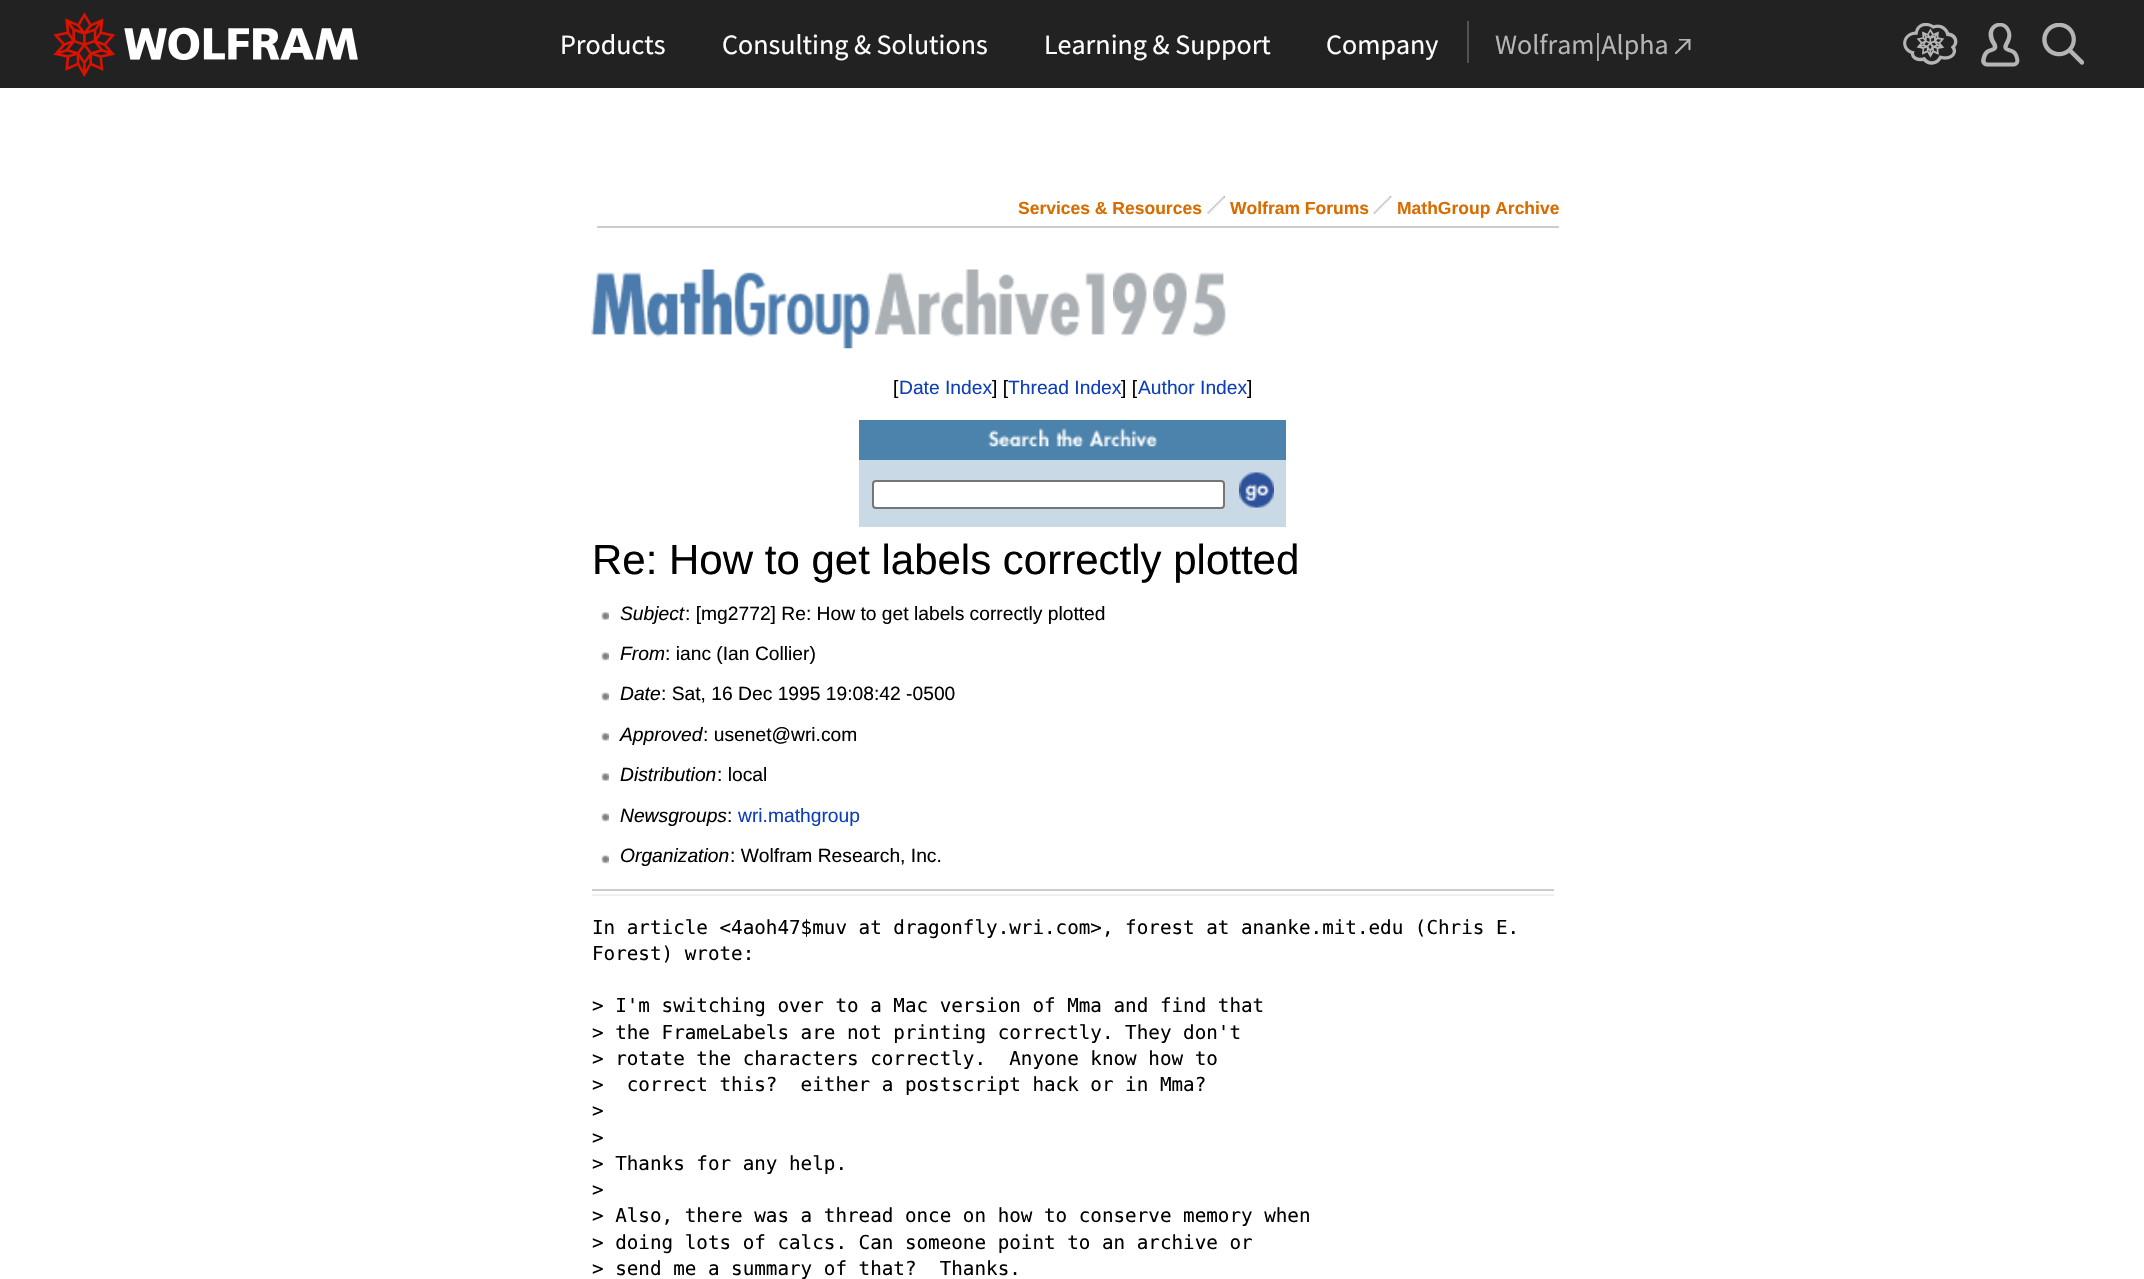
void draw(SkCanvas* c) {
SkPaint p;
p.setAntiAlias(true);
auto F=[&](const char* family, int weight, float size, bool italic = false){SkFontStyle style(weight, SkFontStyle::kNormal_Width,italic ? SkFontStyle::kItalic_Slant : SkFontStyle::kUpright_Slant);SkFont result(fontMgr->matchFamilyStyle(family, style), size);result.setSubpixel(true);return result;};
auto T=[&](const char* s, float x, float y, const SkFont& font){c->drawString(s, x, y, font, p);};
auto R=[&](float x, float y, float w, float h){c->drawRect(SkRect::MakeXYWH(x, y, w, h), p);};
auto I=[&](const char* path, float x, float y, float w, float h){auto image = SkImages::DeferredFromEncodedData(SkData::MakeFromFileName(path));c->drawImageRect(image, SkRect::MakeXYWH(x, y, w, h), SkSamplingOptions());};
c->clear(0xffffffff);
p.setColor(0xff222222);
R(0,0,2144,88);
I("1.png",53,12,305,65);
auto f1 = F("Source Sans Pro",400,28);
p.setColor(0xffffffff);
T("Products",560,54,f1);
T("Consulting & Solutions",722,54,f1);
T("Learning & Support",1044,54,f1);
T("Company",1326,54,f1);
p.setColor(0xff525252);
R(1467,21,2,42);
p.setColor(0xffb5b5b5);
T("Wolfram|Alpha",1495,54,f1);
I("2.png",1675,39,16,15);
I("3.png",1903,23,55,42);
I("4.png",1981,23,39,44);
I("5.png",2042,23,42,42);
auto f2 = F("Liberation Sans",700,17.5);
p.setColor(0xffd86c00);
T("Services & Resources",1018,214,f2);
I("6.png",1207,196,18,18);
T("Wolfram Forums",1230,214,f2);
I("7.png",1373,196,19,18);
T("MathGroup Archive",1397,214,f2);
p.setColor(0xffcccccc);
R(597,226,962,2);
I("8.png",591,269,279,80);
I("9.png",875,269,205,68);
I("10.png",1085,272,20,63);
I("11.png",1113,272,34,63);
I("12.png",1153,272,34,63);
I("13.png",1193,272,33,65);
auto f3 = F("Liberation Sans",400,19.25);
p.setColor(0xff000000);
T("[",893,394,f3);
p.setColor(0xff0e3eb9);
T("Date Index",899,394,f3);
p.setColor(0xff000000);
T("] [",992,394,f3);
p.setColor(0xff0e3eb9);
T("Thread Index",1008,394,f3);
p.setColor(0xff000000);
T("] [",1121,394,f3);
p.setColor(0xff0e3eb9);
T("Author Index",1138,394,f3);
p.setColor(0xff000000);
T("]",1247,394,f3);
p.setColor(0xff4b83ac);
R(859,420,427,40);
I("14.png",988,428,169,19);
p.setColor(0xffc9dae6);
R(859,460,427,67);
p.setColor(0xffffffff);
c->drawRoundRect(SkRect::MakeXYWH(873,481,351,27),3,3,p);
p.setStroke(true);
p.setStrokeWidth(2);
p.setColor(0xff767676);
c->drawRoundRect(SkRect::MakeXYWH(873,481,351,27),3,3,p);
I("15.png",1239,472,35,36);
auto f4 = F("Liberation Sans",400,42);
p.setStroke(false);
p.setColor(0xff000000);
T("Re: How to get labels correctly plotted",592,574,f4);
I("16.png",601,612,8,8);
auto f5 = F("Liberation Sans",400,19.25,true);
T("Subject",620,620,f5);
T(": [mg2772] Re: How to get labels correctly plotted",685,620,f3);
I("17.png",601,652,8,9);
T("From",620,660,f5);
T(": ianc (Ian Collier)",665,660,f3);
I("18.png",601,692,8,9);
T("Date",620,700,f5);
T(": Sat, 16 Dec 1995 19:08:42 -0500",661,700,f3);
I("19.png",601,732,8,9);
T("Approved",620,741,f5);
T(": usenet@wri.com",703,741,f3);
I("16.png",601,773,8,8);
T("Distribution",620,781,f5);
T(": local",717,781,f3);
I("17.png",601,813,8,9);
T("Newsgroups",620,822,f5);
T(":",727,822,f3);
p.setColor(0xff0e3eb9);
T("wri.mathgroup",738,822,f3);
I("17.png",601,855,8,9);
p.setColor(0xff000000);
T("Organization",620,862,f5);
T(": Wolfram Research, Inc.",730,862,f3);
p.setColor(0xffcccccc);
R(592,889,962,2);
p.setColor(0xffefefef);
R(592,894,962,2);
auto f6 = F("DejaVu Sans Mono",400,19.25);
p.setColor(0xff000000);
T("In article <4aoh47$muv at dragonfly.wri.com>, forest at ananke.mit.edu (Chris E.",592,934,f6);
T("Forest) wrote:",592,960,f6);
T("> I'm switching over to a Mac version of Mma and find that",592,1012,f6);
T("> the FrameLabels are not printing correctly. They don't",592,1039,f6);
T("> rotate the characters correctly.  Anyone know how to",592,1065,f6);
T(">  correct this?  either a postscript hack or in Mma?",592,1091,f6);
T(">",592,1117,f6);
T(">",592,1144,f6);
T("> Thanks for any help.",592,1170,f6);
T(">",592,1196,f6);
T("> Also, there was a thread once on how to conserve memory when",592,1222,f6);
T("> doing lots of calcs. Can someone point to an archive or",592,1249,f6);
T("> send me a summary of that?  Thanks.",592,1275,f6);
}
